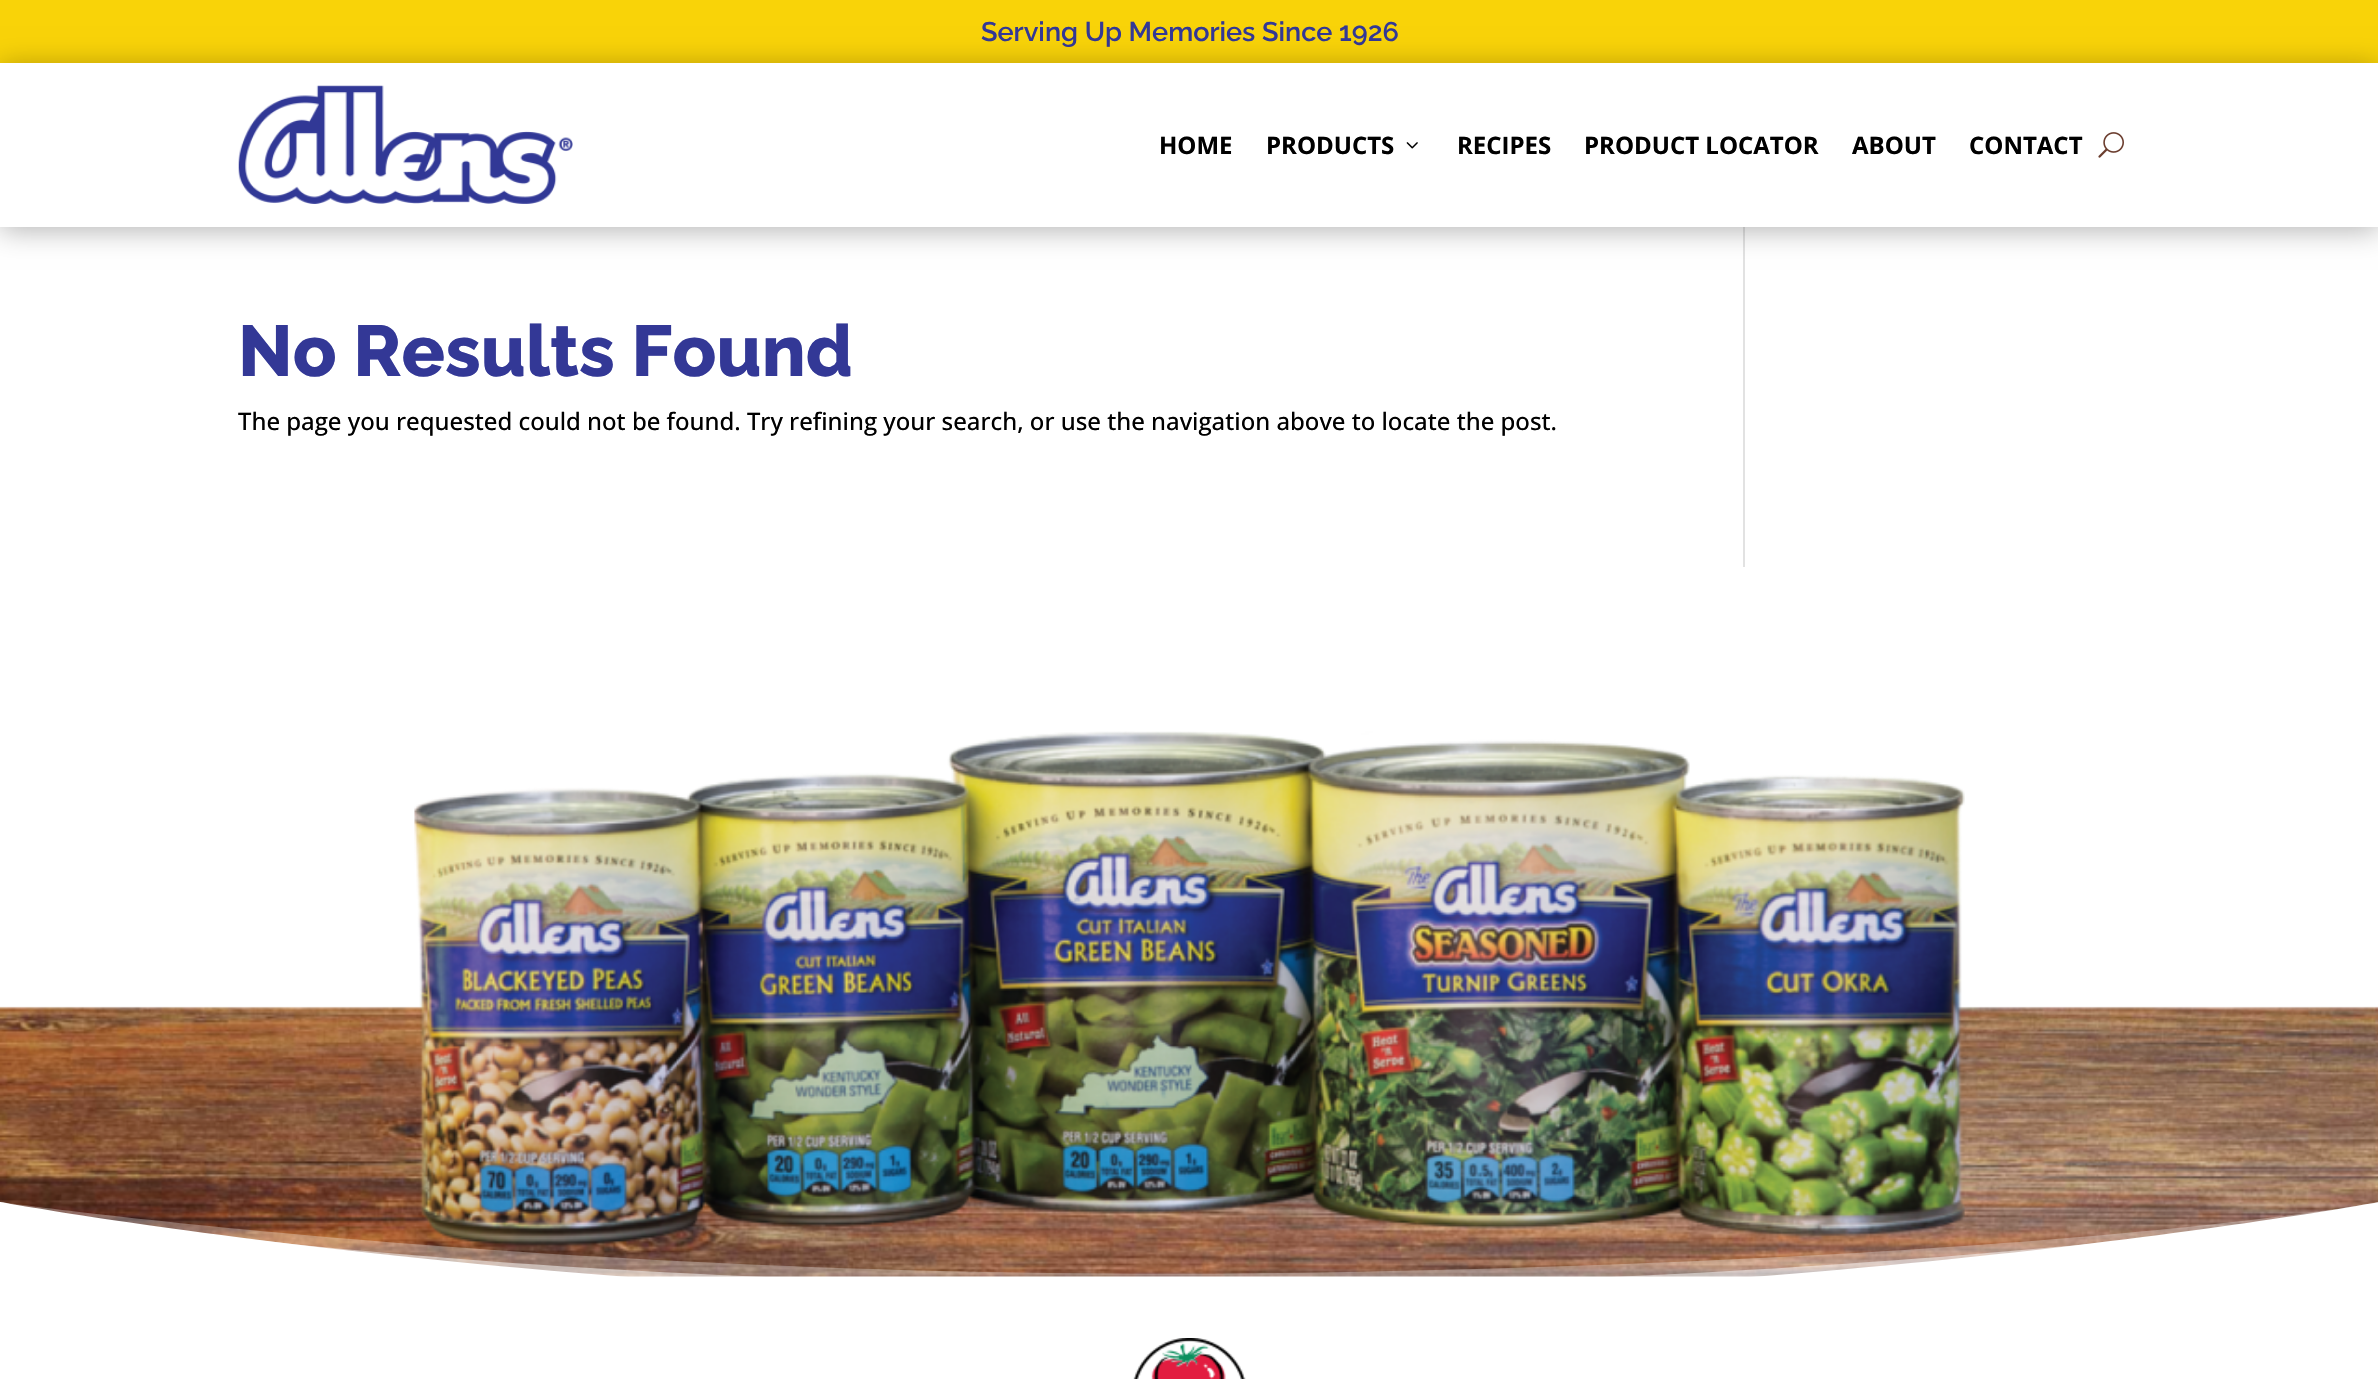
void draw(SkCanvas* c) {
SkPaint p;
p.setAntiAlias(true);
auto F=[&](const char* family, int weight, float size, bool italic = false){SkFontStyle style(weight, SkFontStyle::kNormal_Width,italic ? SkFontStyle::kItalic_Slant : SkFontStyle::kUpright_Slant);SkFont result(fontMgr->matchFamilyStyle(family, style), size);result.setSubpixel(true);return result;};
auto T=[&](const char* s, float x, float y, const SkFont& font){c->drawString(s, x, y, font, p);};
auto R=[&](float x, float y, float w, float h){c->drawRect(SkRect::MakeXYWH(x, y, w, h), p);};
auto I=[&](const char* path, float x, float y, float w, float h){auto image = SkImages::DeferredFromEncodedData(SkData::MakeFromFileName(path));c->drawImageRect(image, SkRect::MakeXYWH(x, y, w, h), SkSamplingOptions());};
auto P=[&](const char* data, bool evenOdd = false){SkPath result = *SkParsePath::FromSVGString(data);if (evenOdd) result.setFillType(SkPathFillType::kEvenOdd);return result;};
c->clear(0xffffffff);
p.setColor(0xfff9d308);
R(0,0,2378,63);
auto f1 = F("Raleway",600,27);
p.setColor(0xff333896);
T("Serving Up Memories Since 1926",981,41,f1);
p.setColor(0xffe2e2e2);
R(1743,227,2,340);
p.setColor(0x4d000000);
p.setMaskFilter(SkMaskFilter::MakeBlur(kNormal_SkBlurStyle, 13.5));
c->drawRect(SkRect::MakeXYWH(0,66,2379,164),p);
p.setMaskFilter(nullptr);
p.setColor(0xffffffff);
R(0,63,2378,164);
I("1.png",238,85,335,119);
auto f2 = F("Open Sans",700,24);
p.setColor(0xff000000);
T("HOME",1159,154,f2);
T("PRODUCTS",1266,154,f2);
I("2.png",1406,142,12,7);
T("RECIPES",1457,154,f2);
T("PRODUCT LOCATOR",1584,154,f2);
T("ABOUT",1852,154,f2);
T("CONTACT",1969,154,f2);
I("3.png",2098,132,26,26);
auto f3 = F("Raleway",800,72);
p.setColor(0xff333896);
T("No Results Found",238,376,f3);
auto f4 = F("Open Sans",500,24);
p.setColor(0xff000000);
T("The page you requested could not be found. Try refining your search, or use the navigation above to locate the post.",238,430,f4);
I("4.png",0,731,2378,546);
p.setColor(0x4dffffff);
c->drawPath(P("M1348 1272c-744 15-1348-70-1348-70v97h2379v-97c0 0-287 55-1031 70z"),p);
p.setColor(0x80ffffff);
c->drawPath(P("M1034 1285c738 14 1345-74 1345-74v88h-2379v-97c0 0 296 69 1034 83z"),p);
c->save();
c->clipRect(SkRect::MakeXYWH(0,1202,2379,97));
p.setColor(0xffffffff);
c->drawPath(P("M1190 1299c656 0 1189-97 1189-97v98h-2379v-98c0 0 533 97 1190 97z"),p);
c->restore();
I("5.png",1133,1338,113,41);
}
